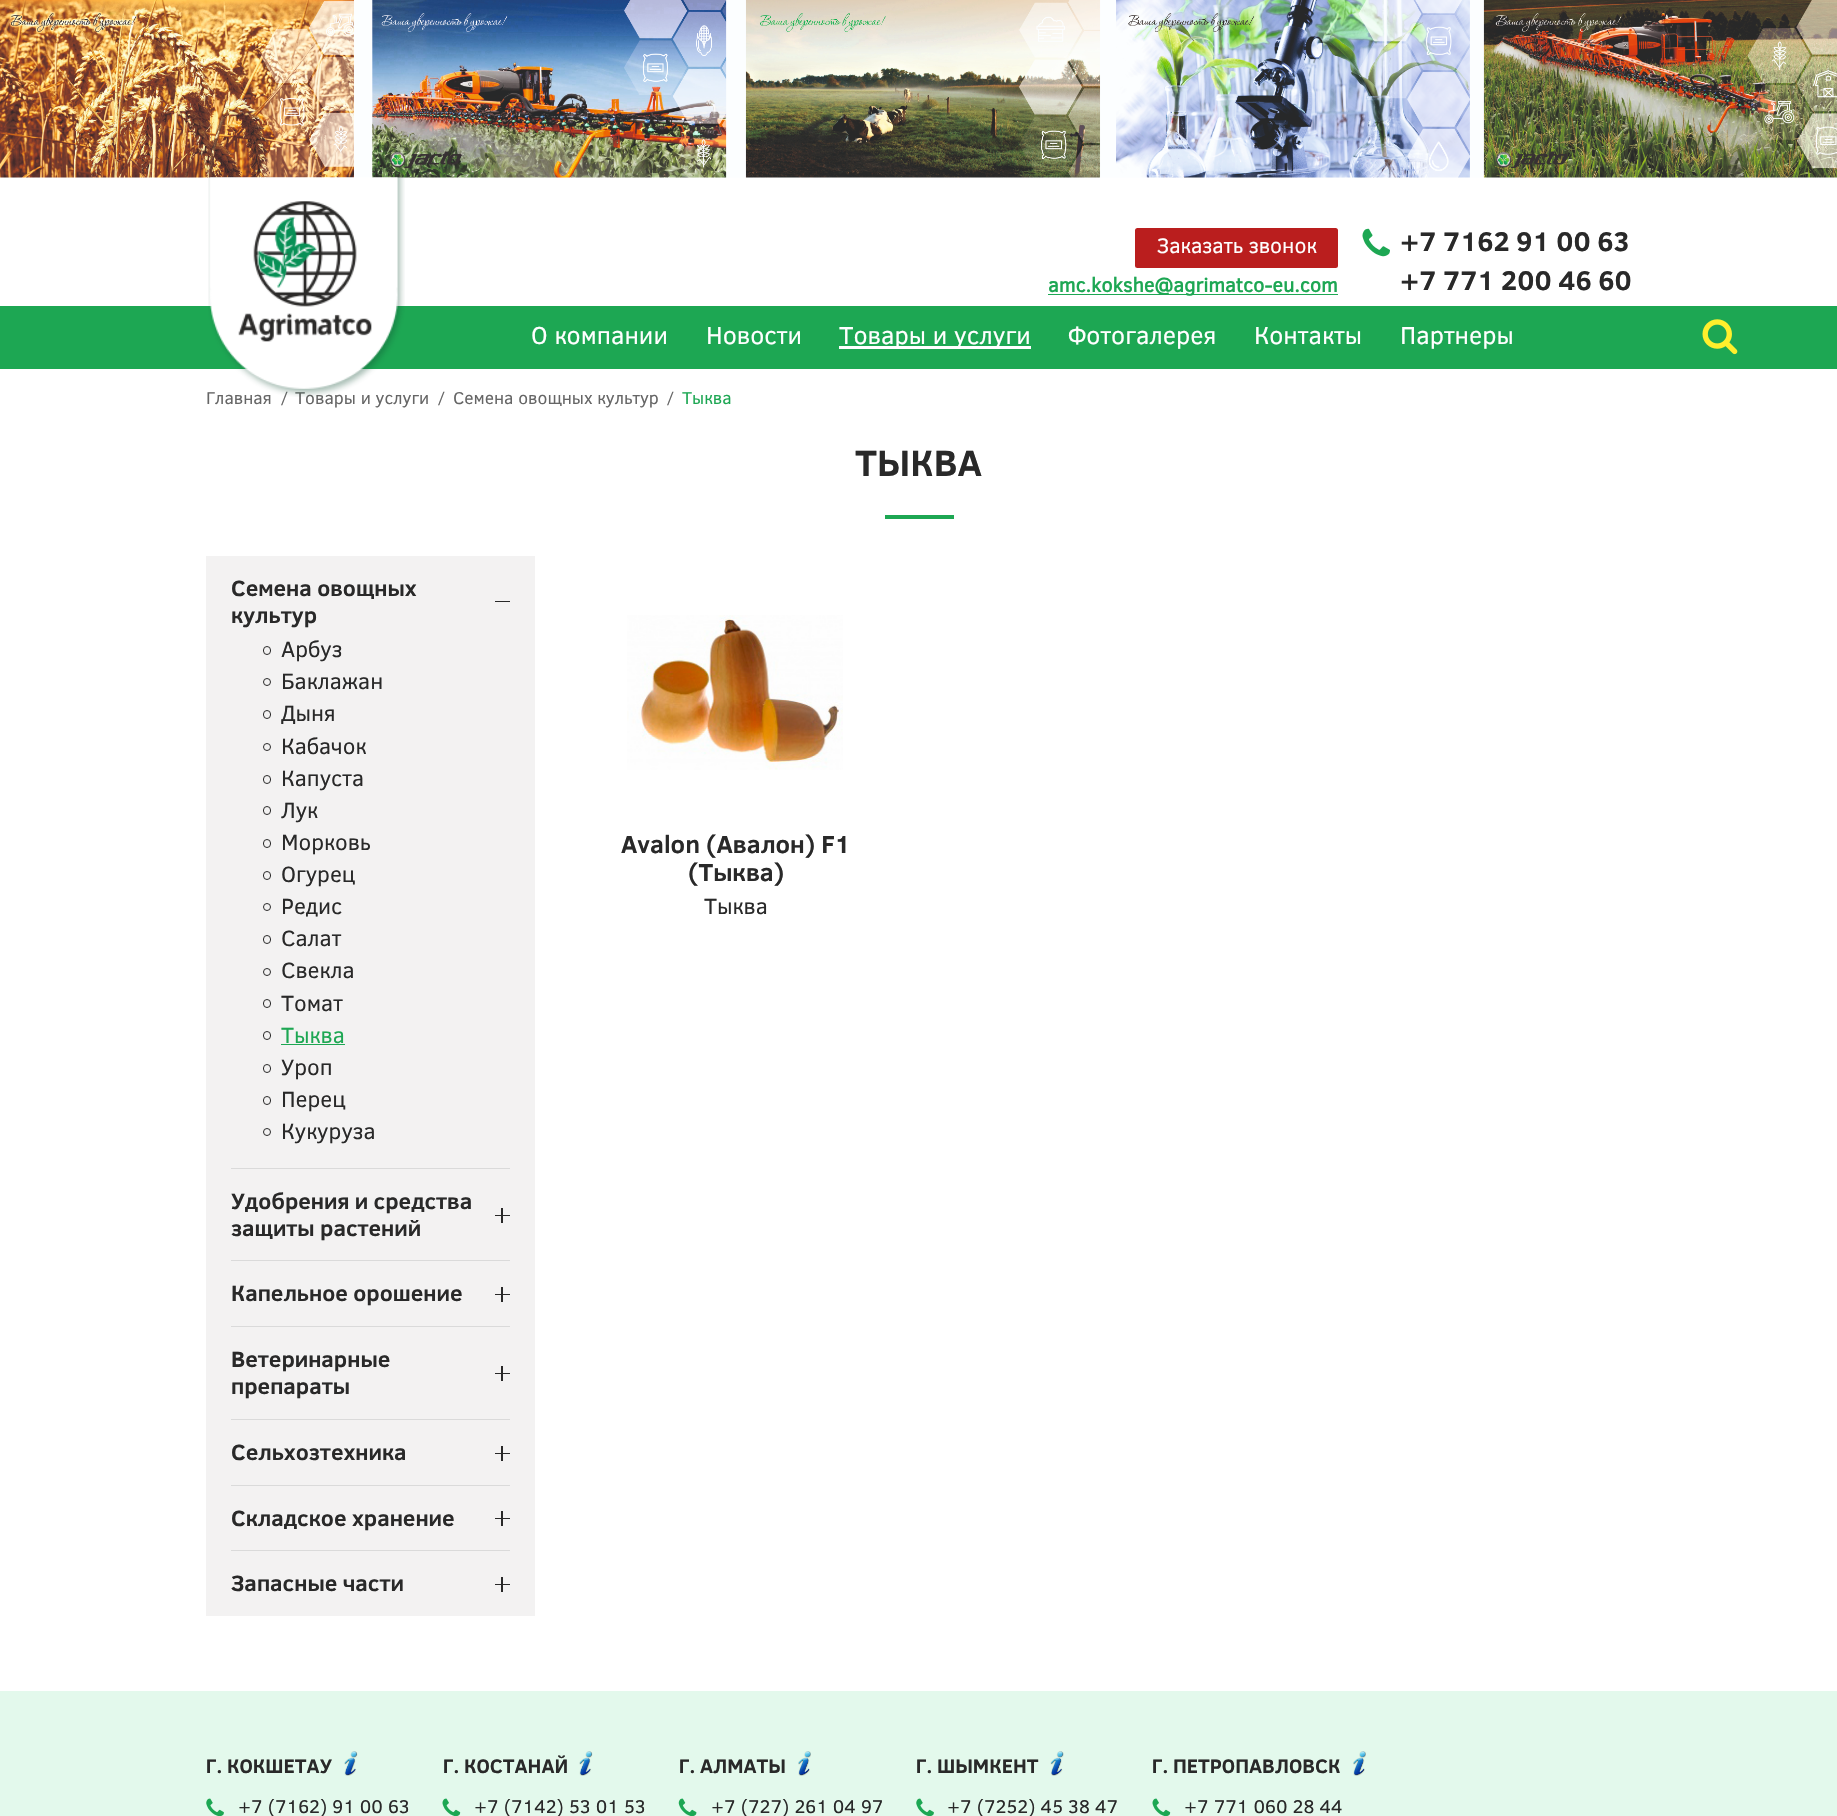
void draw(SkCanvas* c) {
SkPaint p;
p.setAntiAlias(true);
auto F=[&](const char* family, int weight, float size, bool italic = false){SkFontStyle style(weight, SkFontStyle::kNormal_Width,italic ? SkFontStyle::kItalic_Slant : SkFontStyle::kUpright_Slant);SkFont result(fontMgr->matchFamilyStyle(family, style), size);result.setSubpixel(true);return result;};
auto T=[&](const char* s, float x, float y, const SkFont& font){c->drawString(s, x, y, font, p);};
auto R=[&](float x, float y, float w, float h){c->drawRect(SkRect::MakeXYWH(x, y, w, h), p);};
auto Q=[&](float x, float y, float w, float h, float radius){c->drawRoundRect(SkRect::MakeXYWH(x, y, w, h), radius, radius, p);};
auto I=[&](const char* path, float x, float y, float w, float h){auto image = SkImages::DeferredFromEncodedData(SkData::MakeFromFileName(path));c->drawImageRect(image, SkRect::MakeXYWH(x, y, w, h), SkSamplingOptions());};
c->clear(0xffffffff);
I("1.png",0,0,1837,178);
p.setColor(0xff1da753);
R(0,306,1837,63);
auto f1 = F("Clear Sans",400,17.5);
p.setColor(0xff666666);
T("Главная",206,404,f1);
auto f2 = F("Clear Sans",400,15);
T("/",281,403,f2);
T("Товары и услуги",295,404,f1);
I("2.png",208,177,197,220);
p.setColor(0xffba1e1e);
Q(1135,228,203,40,2.5);
auto f3 = F("Clear Sans",400,21.25);
p.setColor(0xffffffff);
T("Заказать звонок",1157,253,f3);
I("3.png",1362,228,28,29);
auto f4 = F("Clear Sans",700,27.5);
p.setColor(0xff292929);
T("+7 7162 91 00 63",1400,251,f4);
T("+7 771 200 46 60",1400,290,f4);
p.setColor(0xff1da753);
R(1048,294,290,1);
auto f5 = F("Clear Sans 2",700,20);
T("amc.kokshe@agrimatco-eu.com",1048,292,f5);
auto f6 = F("Clear Sans",400,25);
p.setColor(0xffffffff);
T("О компании",531,344,f6);
T("Новости",706,344,f6);
R(839,346,192,3);
T("Товары и услуги",839,344,f6);
T("Фотогалерея",1068,344,f6);
T("Контакты",1254,344,f6);
T("Партнеры",1400,344,f6);
I("4.png",1702,319,36,36);
p.setColor(0xff666666);
T("/",438,403,f2);
T("Семена овощных культур",453,404,f1);
T("/",667,403,f2);
p.setColor(0xff1da753);
T("Тыква",682,404,f1);
auto f7 = F("Clear Sans",700,37.5);
p.setColor(0xff292929);
T("ТЫКВА",855,476,f7);
p.setColor(0xff1da753);
R(885,515,69,4);
p.setColor(0xfff3f2f2);
R(206,556,329,1060);
p.setColor(0xffdadada);
R(231,1168,279,1);
auto f8 = F("Clear Sans",700,22.5);
p.setColor(0xff292929);
T("Семена овощных",231,596,f8);
R(495,601,15,1);
T("культур",231,623,f8);
p.setStroke(true);
p.setStrokeWidth(1);
c->drawRoundRect(SkRect::MakeXYWH(263.5,646.5,7,8),3.5,3.5,p);
auto f9 = F("Clear Sans",400,22.5);
p.setStroke(false);
T("Арбуз",281,657,f9);
p.setStroke(true);
c->drawCircle(267,682,3.5,p);
p.setStroke(false);
T("Баклажан",281,689,f9);
p.setStroke(true);
c->drawRoundRect(SkRect::MakeXYWH(263.5,710.5,7,8),3.5,3.5,p);
p.setStroke(false);
T("Дыня",281,721,f9);
p.setStroke(true);
c->drawCircle(267,747,3.5,p);
p.setStroke(false);
T("Кабачок",281,754,f9);
p.setStroke(true);
c->drawRoundRect(SkRect::MakeXYWH(263.5,775.5,7,8),3.5,3.5,p);
p.setStroke(false);
T("Капуста",281,786,f9);
p.setStroke(true);
c->drawRoundRect(SkRect::MakeXYWH(263.5,806.5,7,8),3.5,3.5,p);
p.setStroke(false);
T("Лук",281,818,f9);
p.setStroke(true);
c->drawRoundRect(SkRect::MakeXYWH(263.5,839.5,7,8),3.5,3.5,p);
p.setStroke(false);
T("Морковь",281,850,f9);
p.setStroke(true);
c->drawRoundRect(SkRect::MakeXYWH(263.5,871.5,7,8),3.5,3.5,p);
p.setStroke(false);
T("Огурец",281,882,f9);
p.setStroke(true);
c->drawCircle(267,907,3.5,p);
p.setStroke(false);
T("Редис",281,914,f9);
p.setStroke(true);
c->drawRoundRect(SkRect::MakeXYWH(263.5,935.5,7,8),3.5,3.5,p);
p.setStroke(false);
T("Салат",281,946,f9);
p.setStroke(true);
c->drawCircle(267,972,3.5,p);
p.setStroke(false);
T("Свекла",281,978,f9);
p.setStroke(true);
c->drawRoundRect(SkRect::MakeXYWH(263.5,999.5,7,8),3.5,3.5,p);
p.setStroke(false);
T("Томат",281,1011,f9);
p.setStroke(true);
c->drawRoundRect(SkRect::MakeXYWH(263.5,1031.5,7,8),3.5,3.5,p);
p.setStroke(false);
p.setColor(0xff1da753);
T("Тыква",281,1043,f9);
R(281,1044,64,1);
p.setStroke(true);
p.setColor(0xff292929);
c->drawRoundRect(SkRect::MakeXYWH(263.5,1064.5,7,8),3.5,3.5,p);
p.setStroke(false);
T("Уроп",281,1075,f9);
p.setStroke(true);
c->drawRoundRect(SkRect::MakeXYWH(263.5,1096.5,7,8),3.5,3.5,p);
p.setStroke(false);
T("Перец",281,1107,f9);
p.setStroke(true);
c->drawCircle(267,1132,3.5,p);
p.setStroke(false);
T("Кукуруза",281,1139,f9);
p.setColor(0xffdadada);
R(231,1260,279,1);
p.setColor(0xff292929);
T("Удобрения и средства",231,1209,f8);
R(501,1208,2,15);
R(495,1215,15,1);
T("защиты растений",231,1236,f8);
p.setColor(0xffdadada);
R(231,1326,279,1);
p.setColor(0xff292929);
T("Капельное орошение",231,1301,f8);
R(501,1287,2,15);
R(495,1294,15,1);
p.setColor(0xffdadada);
R(231,1419,279,1);
p.setColor(0xff292929);
T("Ветеринарные",231,1367,f8);
R(501,1366,2,15);
R(495,1373,15,1);
T("препараты",231,1394,f8);
p.setColor(0xffdadada);
R(231,1485,279,1);
p.setColor(0xff292929);
T("Сельхозтехника",231,1460,f8);
R(501,1446,2,15);
R(495,1453,15,1);
p.setColor(0xffdadada);
R(231,1550,279,1);
p.setColor(0xff292929);
T("Складское хранение",231,1526,f8);
R(501,1511,2,15);
R(495,1518,15,1);
T("Запасные части",231,1591,f8);
R(501,1577,2,15);
R(495,1584,15,1);
I("5.png",627,615,216,155);
auto f10 = F("Clear Sans",700,25);
T("Avalon (Авалон) F1",621,853,f10);
T("(Тыква)",688,881,f10);
T("Тыква",704,914,f9);
p.setColor(0xffe3f9ec);
R(0,1691,1837,125);
auto f11 = F("Clear Sans",700,20);
p.setColor(0xff292929);
T("Г. КОКШЕТАУ",206,1773,f11);
I("6.png",344,1751,14,25);
I("7.png",206,1798,18,18);
auto f12 = F("Clear Sans",400,18.75);
T("+7 (7162) 91 00 63",238,1813,f12);
T("Г. КОСТАНАЙ",443,1773,f11);
I("6.png",579,1751,14,25);
I("8.png",442,1798,19,18);
T("+7 (7142) 53 01 53",474,1813,f12);
T("Г. АЛМАТЫ",679,1773,f11);
I("9.png",798,1751,13,25);
I("10.png",678,1798,19,18);
T("+7 (727) 261 04 97",711,1813,f12);
T("Г. ШЫМКЕНТ",916,1773,f11);
I("11.png",1050,1751,14,25);
I("7.png",916,1798,18,18);
T("+7 (7252) 45 38 47",947,1813,f12);
T("Г. ПЕТРОПАВЛОВСК",1152,1773,f11);
I("9.png",1353,1751,13,25);
I("8.png",1152,1798,19,18);
T("+7 771 060 28 44",1184,1813,f12);
}
